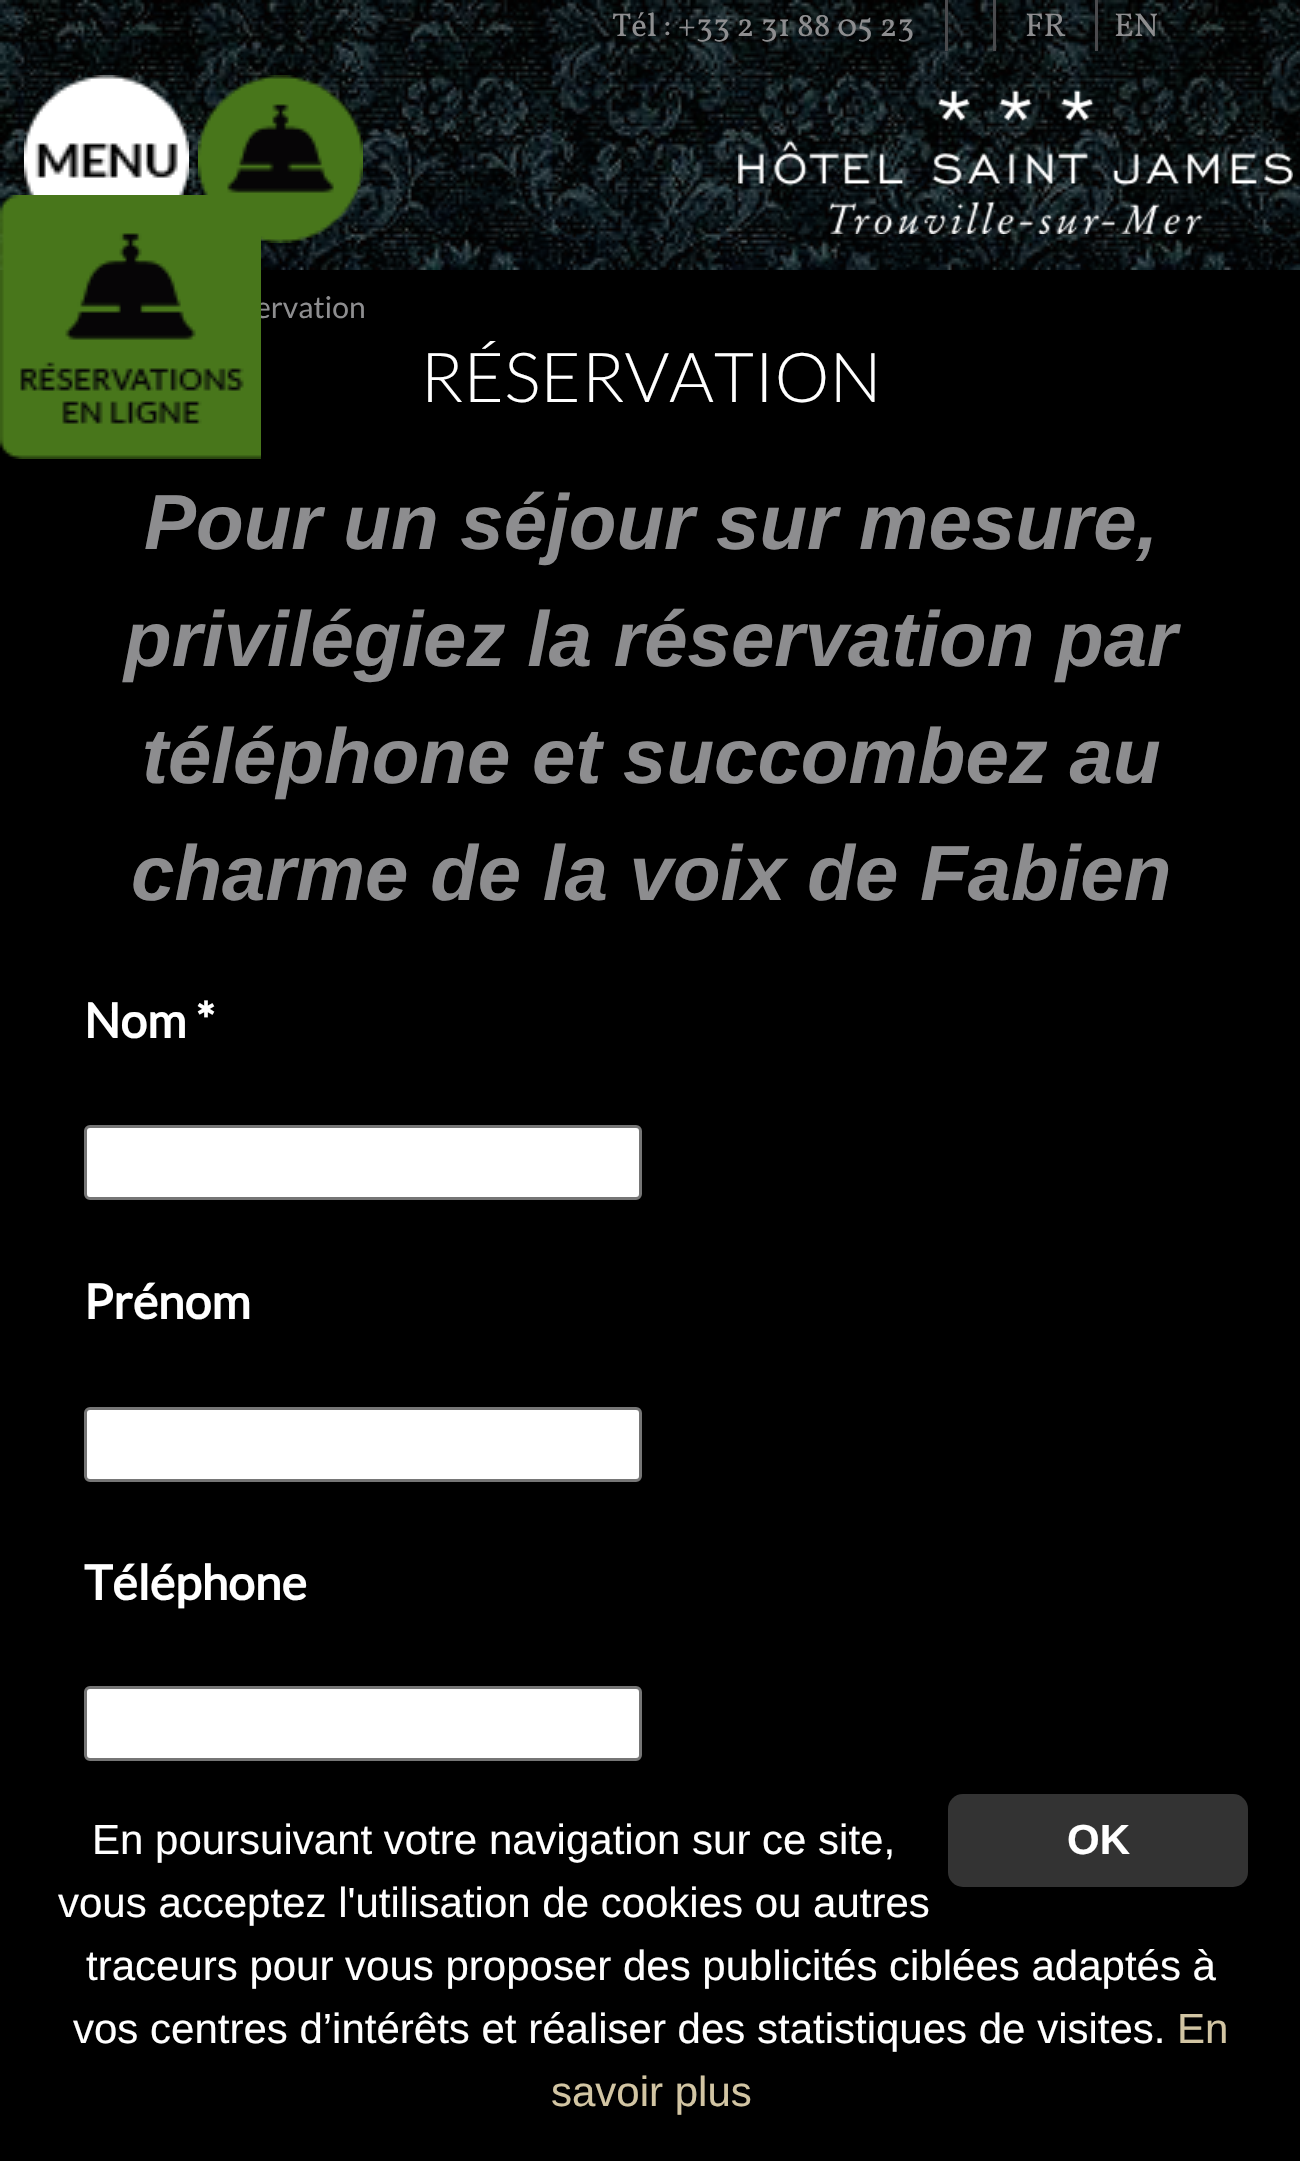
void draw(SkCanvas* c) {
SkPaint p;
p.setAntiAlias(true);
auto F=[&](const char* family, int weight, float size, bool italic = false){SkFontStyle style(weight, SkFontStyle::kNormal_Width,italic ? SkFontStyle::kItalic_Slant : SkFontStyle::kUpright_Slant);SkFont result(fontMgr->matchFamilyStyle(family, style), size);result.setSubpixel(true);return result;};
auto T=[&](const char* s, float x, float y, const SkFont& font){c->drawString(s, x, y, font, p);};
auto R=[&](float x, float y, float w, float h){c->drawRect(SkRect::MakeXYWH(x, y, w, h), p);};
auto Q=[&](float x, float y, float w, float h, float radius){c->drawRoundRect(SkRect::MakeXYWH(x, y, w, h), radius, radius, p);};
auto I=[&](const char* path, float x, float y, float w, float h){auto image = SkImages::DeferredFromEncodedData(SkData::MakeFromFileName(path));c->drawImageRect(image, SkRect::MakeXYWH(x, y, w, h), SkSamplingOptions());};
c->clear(0xff000000);
I("1.png",0,0,1300,270);
auto f1 = F("Vollkorn",400,33);
p.setColor(0xff8d8d8f);
T("Tél : +33 2 31 88 05 23",612,36,f1);
p.setColor(0xff4a4a4d);
R(945,0,3,51);
R(993,0,3,51);
p.setColor(0xff8d8d8f);
T("FR",1025,36,f1);
p.setColor(0xff4a4a4d);
R(1095,0,3,51);
p.setColor(0xff8d8d8f);
T("EN",1114,36,f1);
I("2.png",24,75,165,120);
I("3.png",198,75,165,168);
I("4.png",738,90,555,144);
auto f2 = F("Lato",400,30);
T("ervation",255,318,f2);
I("5.png",0,195,261,264);
auto f3 = F("Lato",300,69);
p.setColor(0xffffffff);
T("RÉSERVATION",420,402,f3);
auto f4 = F("Liberation Sans",700,78,true);
p.setColor(0xff8d8d8f);
T("Pour un séjour sur mesure,",144,549,f4);
T("privilégiez la réservation par",124,666,f4);
T("téléphone et succombez au",142,783,f4);
T("charme de la voix de Fabien",131,900,f4);
auto f5 = F("Lato",700,48);
p.setColor(0xffffffff);
T("Nom *",84,1038,f5);
c->drawRoundRect(SkRect::MakeXYWH(85.5,1126.5,555,72),4.5,4.5,p);
p.setStroke(true);
p.setStrokeWidth(3);
p.setColor(0xff767676);
c->drawRoundRect(SkRect::MakeXYWH(85.5,1126.5,555,72),4.5,4.5,p);
p.setStroke(false);
p.setColor(0xffffffff);
T("Prénom",84,1319,f5);
c->drawRoundRect(SkRect::MakeXYWH(85.5,1408.5,555,72),4.5,4.5,p);
p.setStroke(true);
p.setColor(0xff767676);
c->drawRoundRect(SkRect::MakeXYWH(85.5,1408.5,555,72),4.5,4.5,p);
p.setStroke(false);
p.setColor(0xffffffff);
T("Téléphone",84,1600,f5);
c->drawRoundRect(SkRect::MakeXYWH(85.5,1687.5,555,72),4.5,4.5,p);
p.setStroke(true);
p.setColor(0xff767676);
c->drawRoundRect(SkRect::MakeXYWH(85.5,1687.5,555,72),4.5,4.5,p);
auto f6 = F("Liberation Sans",400,42);
p.setStroke(false);
p.setColor(0xffffffff);
T("En poursuivant votre navigation sur ce site,",92,1854,f6);
T("vous acceptez l'utilisation de cookies ou autres",58,1917,f6);
T("traceurs pour vous proposer des publicités ciblées adaptés à",86,1980,f6);
T("vos centres d’intérêts et réaliser des statistiques de visites.",73,2043,f6);
p.setColor(0xffd2c5a3);
T("En",1177,2043,f6);
T("savoir plus",551,2106,f6);
p.setColor(0xff333333);
Q(948,1794,300,93,15);
auto f7 = F("Liberation Sans",700,42);
p.setColor(0xffffffff);
T("OK",1067,1854,f7);
}
